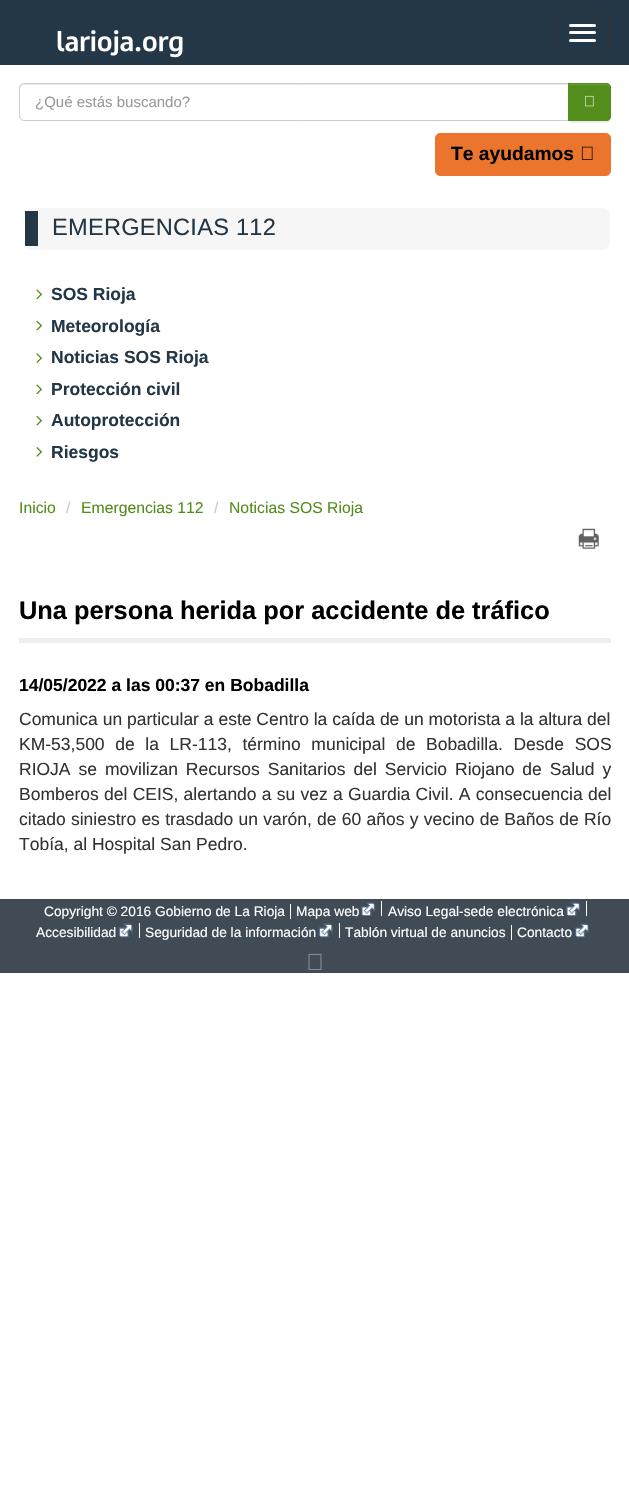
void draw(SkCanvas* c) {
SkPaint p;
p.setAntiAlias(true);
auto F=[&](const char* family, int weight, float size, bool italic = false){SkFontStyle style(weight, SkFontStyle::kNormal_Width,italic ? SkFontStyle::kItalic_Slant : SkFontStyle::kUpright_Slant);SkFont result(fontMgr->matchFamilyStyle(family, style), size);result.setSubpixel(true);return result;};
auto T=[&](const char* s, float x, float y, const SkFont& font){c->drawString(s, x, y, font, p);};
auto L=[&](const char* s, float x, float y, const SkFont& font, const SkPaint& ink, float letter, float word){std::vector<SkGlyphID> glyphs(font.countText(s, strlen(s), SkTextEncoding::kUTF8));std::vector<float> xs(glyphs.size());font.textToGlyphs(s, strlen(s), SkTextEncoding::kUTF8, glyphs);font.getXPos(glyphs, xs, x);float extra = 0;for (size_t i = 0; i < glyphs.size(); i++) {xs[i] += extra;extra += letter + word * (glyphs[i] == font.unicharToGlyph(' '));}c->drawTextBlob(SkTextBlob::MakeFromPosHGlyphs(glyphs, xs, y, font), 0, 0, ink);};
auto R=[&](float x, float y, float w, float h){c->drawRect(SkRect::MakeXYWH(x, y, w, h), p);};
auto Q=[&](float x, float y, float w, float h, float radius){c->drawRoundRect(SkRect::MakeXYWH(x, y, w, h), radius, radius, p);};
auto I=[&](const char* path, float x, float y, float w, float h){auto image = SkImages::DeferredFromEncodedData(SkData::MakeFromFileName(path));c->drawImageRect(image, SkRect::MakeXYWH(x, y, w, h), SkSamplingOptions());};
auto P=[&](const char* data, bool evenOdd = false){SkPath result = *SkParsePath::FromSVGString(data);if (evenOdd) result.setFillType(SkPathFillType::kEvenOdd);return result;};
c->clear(0xffffffff);
p.setColor(0xff243746);
R(0,0,629,65);
I("1.png",57,30,126,28);
p.setStroke(true);
p.setStrokeWidth(1);
p.setColor(0xff333333);
c->drawRoundRect(SkRect::MakeXYWH(555.5,11.5,54,42),4.5,4.5,p);
p.setStroke(false);
p.setColor(0xffffffff);
Q(569,24,27,3,1.5);
Q(569,31,27,3,1.5);
Q(569,39,27,3,1.5);
p.setColor(0xffececec);
c->drawPath(P("M24 85h544v-1h-544c-3 0-4 2-4 5c0-2 2-4 4-4z"),p);
p.setStroke(true);
p.setColor(0xffcccccc);
c->drawPath(P("M24 83.5h544.5v37h-544.5c-2.5 0-4.5-2-4.5-4.5v-28c0-2.5 2-4.5 4.5-4.5z"),p);
auto f1 = F("Liberation Sans",400,15);
p.setStroke(false);
p.setColor(0xff999999);
T("¿Qué estás buscando?",35,107,f1);
p.setColor(0x12000000);
p.setMaskFilter(SkMaskFilter::MakeBlur(kNormal_SkBlurStyle, .5));
c->drawRoundRect(SkRect::MakeXYWH(568,84,43,39),5,5,p);
p.setMaskFilter(nullptr);
p.setColor(0xff538d1c);
c->drawPath(P("M568 83h38c3 0 5 2 5 5v28c0 3-2 5-5 5h-38z"),p);
p.setColor(0xff6d9e3e);
c->drawPath(P("M569 85h37c2 0 4 2 4 4v-1c0-2-2-4-4-4h-37z"),p);
p.setStroke(true);
p.setColor(0xff538d1c);
c->drawPath(P("M568.5 83.5h37.5c2.5 0 4.5 2 4.5 4.5v28c0 2.5-2 4.5-4.5 4.5h-37.5z"),p);
I("2.png",585,95,9,12);
p.setStroke(false);
p.setColor(0xffec752e);
c->drawRoundRect(SkRect::MakeXYWH(435.5,133.5,175,42),4.5,4.5,p);
p.setStroke(true);
c->drawRoundRect(SkRect::MakeXYWH(435.5,133.5,175,42),4.5,4.5,p);
auto f2 = F("Liberation Sans",700,19.25);
p.setStroke(false);
p.setColor(0xff000000);
T("Te ayudamos",451,160,f2);
I("3.png",581,146,12,14);
p.setColor(0xfff6f6f6);
Q(25,208,585,42,8);
p.setColor(0xff243746);
R(25,211,13,35);
auto f3 = F("Liberation Sans",400,23.6);
L("EMERGENCIAS 112",52,235,f3,p,.25,0);
I("4.png",36,289,6,11);
auto f4 = F("Liberation Sans",700,17.5);
T("SOS Rioja",51,300,f4);
I("5.png",36,320,6,11);
T("Meteorología",51,332,f4);
I("6.png",36,353,6,10);
T("Noticias SOS Rioja",51,363,f4);
I("4.png",36,384,6,11);
T("Protección civil",51,395,f4);
I("5.png",36,415,6,11);
T("Autoprotección",51,426,f4);
I("7.png",36,447,6,10);
T("Riesgos",51,458,f4);
auto f5 = F("Liberation Sans",400,15.75);
p.setColor(0xff538d1c);
T("Inicio",19,513,f5);
p.setColor(0xffcccccc);
T("/",66,513,f5);
p.setColor(0xff538d1c);
T("Emergencias 112",81,513,f5);
p.setColor(0xffcccccc);
T("/",214,513,f5);
p.setColor(0xff538d1c);
T("Noticias SOS Rioja",229,513,f5);
I("8.png",578,528,21,21);
p.setColor(0xffeeeeee);
R(19,638,592,5);
auto f6 = F("Liberation Sans",700,25.4);
p.setColor(0xff000000);
T("Una persona herida por accidente de tráfico",19,619,f6);
T("14/05/2022 a las 00:37 en Bobadilla",19,691,f4);
auto f7 = F("Liberation Sans",400,17.5);
p.setColor(0xff333333);
T("Comunica un particular a este Centro la caída de un motorista a la altura del",19,725,f7);
L("KM-53,500 de la LR-113, término municipal de Bobadilla. Desde SOS",19,750,f7,p,0,5.75);
L("RIOJA se movilizan Recursos Sanitarios del Servicio Riojano de Salud y",19,775,f7,p,0,3.1);
L("Bomberos del CEIS, alertando a su vez a Guardia Civil. A consecuencia del",19,800,f7,p,0,.4);
L("citado siniestro es trasdado un varón, de 60 años y vecino de Baños de Río",19,825,f7,p,0,.4);
T("Tobía, al Hospital San Pedro.",19,850,f7);
p.setColor(0xff414b56);
R(0,899,629,74);
auto f8 = F("Liberation Sans",400,13.75);
p.setColor(0xffffffff);
T("Copyright © 2016 Gobierno de La Rioja",44,916,f8);
R(290,904,1,15);
T("Mapa web",296,916,f8);
R(381,901,1,15);
I("9.png",361,902,15,14);
T("Aviso Legal-sede electrónica",388,916,f8);
R(586,901,1,15);
I("10.png",566,902,15,14);
T("Accesibilidad",36,937,f8);
R(139,923,1,15);
I("11.png",118,923,15,15);
T("Seguridad de la información",145,937,f8);
R(339,923,1,15);
I("12.png",318,923,15,15);
T("Tablón virtual de anuncios",345,937,f8);
R(511,925,1,15);
T("Contacto",517,937,f8);
I("13.png",575,923,14,15);
I("14.png",308,953,14,17);
}
